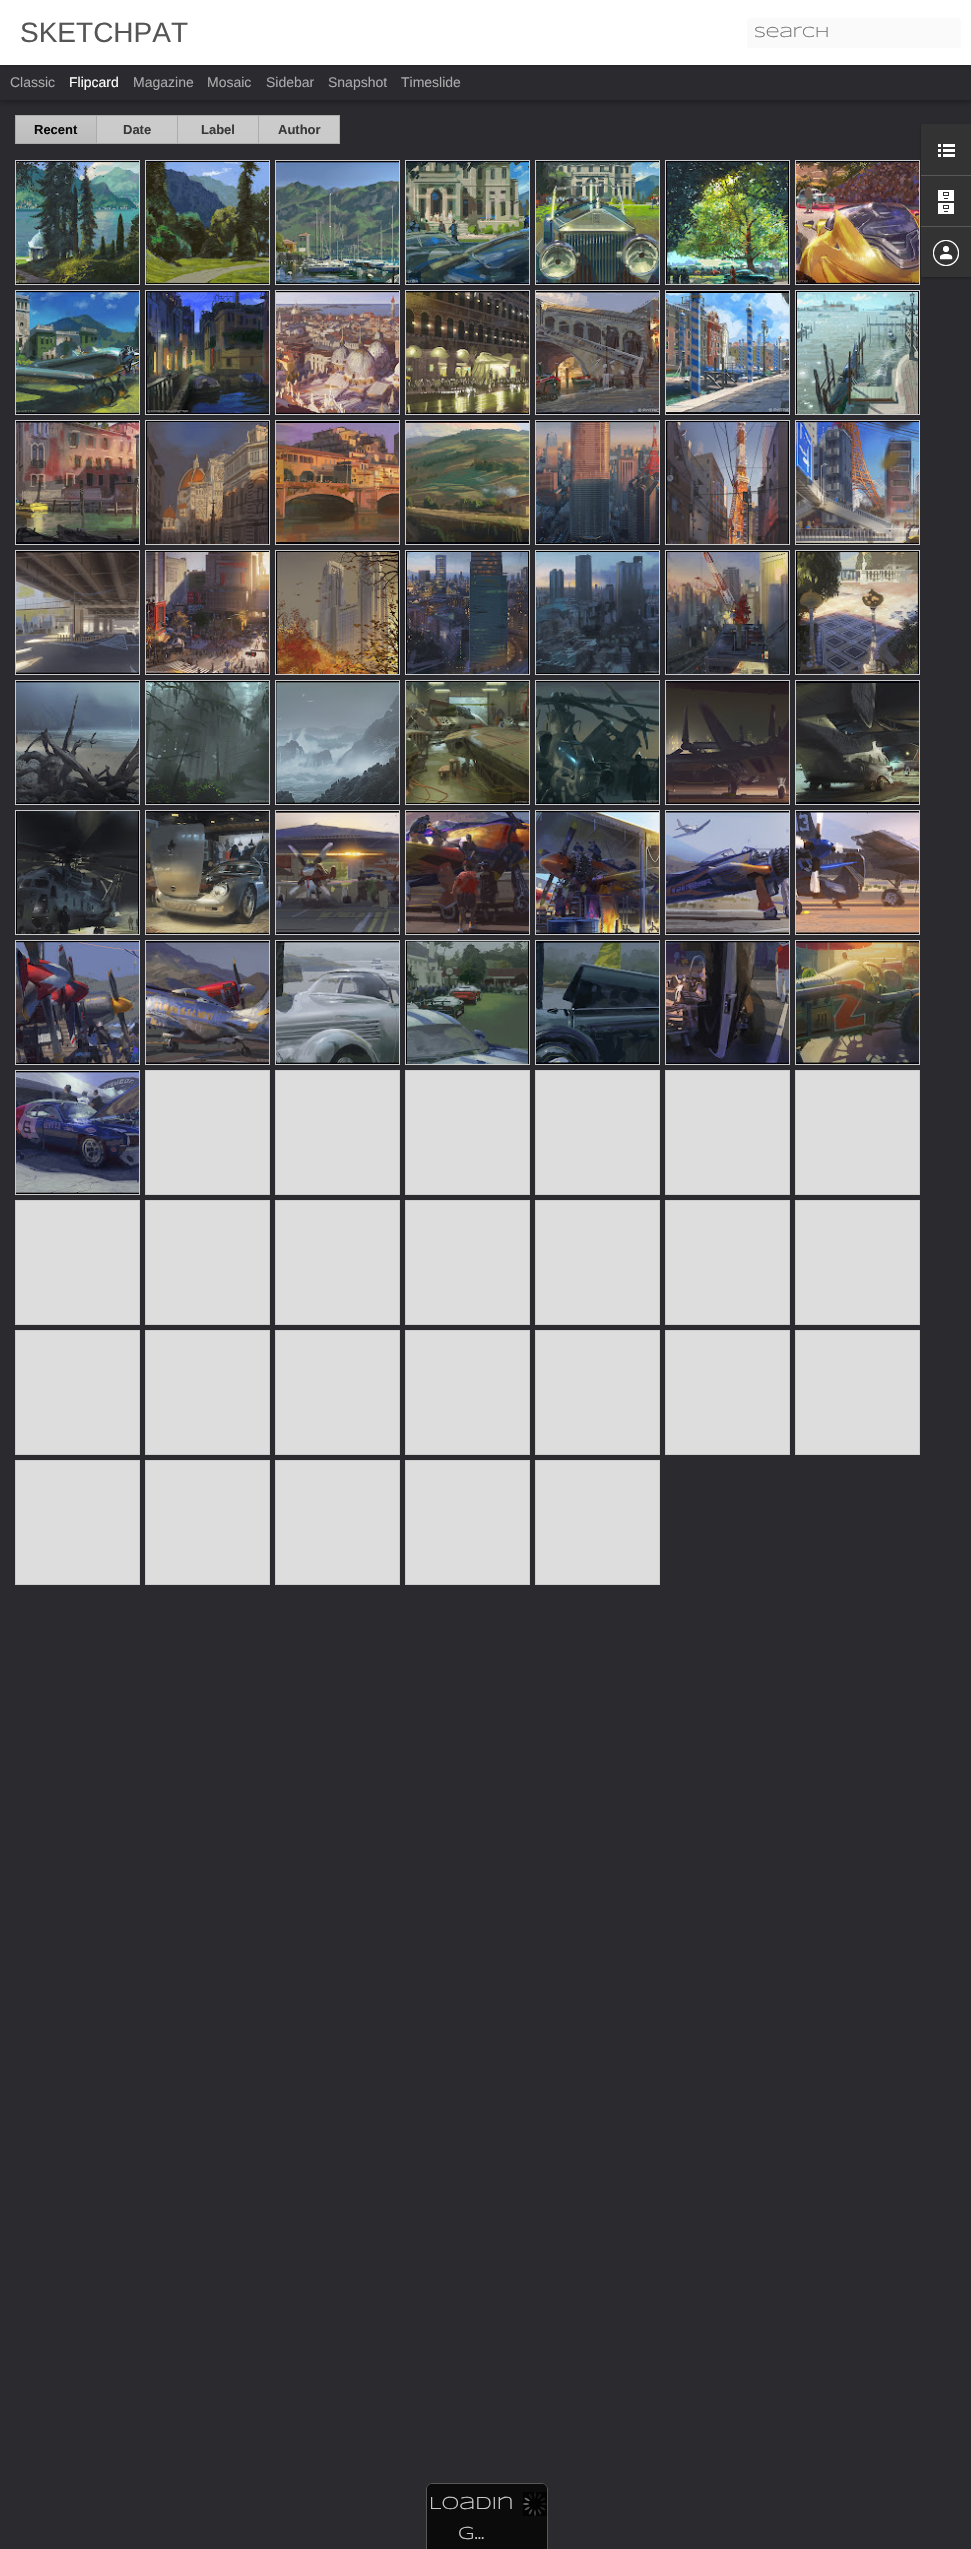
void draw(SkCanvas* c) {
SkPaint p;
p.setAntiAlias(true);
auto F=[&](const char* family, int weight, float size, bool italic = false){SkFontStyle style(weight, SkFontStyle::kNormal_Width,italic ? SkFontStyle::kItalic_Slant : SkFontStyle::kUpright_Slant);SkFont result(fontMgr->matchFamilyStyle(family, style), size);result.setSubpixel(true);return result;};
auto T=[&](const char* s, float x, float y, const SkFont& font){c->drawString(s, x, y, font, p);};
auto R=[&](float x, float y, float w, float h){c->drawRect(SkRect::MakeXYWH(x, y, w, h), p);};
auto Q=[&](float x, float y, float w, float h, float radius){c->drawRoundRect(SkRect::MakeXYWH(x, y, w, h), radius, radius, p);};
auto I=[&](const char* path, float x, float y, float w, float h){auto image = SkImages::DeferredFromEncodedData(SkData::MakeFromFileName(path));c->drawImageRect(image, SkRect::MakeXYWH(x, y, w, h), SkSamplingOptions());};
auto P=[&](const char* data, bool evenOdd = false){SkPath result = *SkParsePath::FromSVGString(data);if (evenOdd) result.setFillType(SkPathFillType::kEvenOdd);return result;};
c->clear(0xff2a2a2f);
p.setColor(0x4d000000);
p.setMaskFilter(SkMaskFilter::MakeBlur(kNormal_SkBlurStyle, 2.5));
c->drawRect(SkRect::MakeXYWH(0,0,971,65),p);
p.setMaskFilter(nullptr);
c->save();
c->clipRect(SkRect::MakeXYWH(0,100,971,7));
p.setColor(0x80000000);
p.setMaskFilter(SkMaskFilter::MakeBlur(kNormal_SkBlurStyle, 4));
c->drawRect(SkRect::MakeXYWH(0,65,971,35),p);
p.setMaskFilter(nullptr);
c->restore();
p.setColor(0xffffffff);
R(0,0,971,65);
auto f1 = F("Liberation Sans",400,28);
p.setColor(0xff555555);
T("SKETCHPAT",20,42,f1);
p.setColor(0xfffafafa);
Q(747,18,214,30,3);
auto f2 = F("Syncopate",400,15);
p.setColor(0xff757575);
T("search",754,37,f2);
auto f3 = F("Liberation Sans",400,14);
p.setColor(0xffaaaaac);
T("Classic",10,87,f3);
p.setColor(0xffffffff);
T("Flipcard",69,87,f3);
p.setColor(0xffaaaaac);
T("Magazine",133,87,f3);
T("Mosaic",207,87,f3);
T("Sidebar",266,87,f3);
T("Snapshot",328,87,f3);
T("Timeslide",401,87,f3);
{
const SkColor colors[] = {0xffc7c7c8,0xffbcbcbd};
const float stops[] = {0,1};
const SkPoint ends[] = {{56,116}, {56,143}};
p.setShader(SkGradientShader::MakeLinear(ends, colors, stops, 2, SkTileMode::kClamp));
p.setAlpha(255);
}
R(16,116,80,27);
p.setStroke(true);
p.setStrokeWidth(1);
p.setShader(nullptr);
p.setColor(0xffacacad);
c->drawRect(SkRect::MakeXYWH(15.5,115.5,81,28),p);
auto f4 = F("Liberation Sans",700,13);
p.setStroke(false);
p.setColor(0xff080809);
T("Recent",34,134,f4);
{
const SkColor colors[] = {0xffcccccd,0xffc9c9ca};
const float stops[] = {0,1};
const SkPoint ends[] = {{137,116}, {137,143}};
p.setShader(SkGradientShader::MakeLinear(ends, colors, stops, 2, SkTileMode::kClamp));
p.setAlpha(255);
}
R(97,116,80,27);
p.setStroke(true);
p.setShader(nullptr);
p.setColor(0xffacacad);
c->drawRect(SkRect::MakeXYWH(96.5,115.5,81,28),p);
p.setStroke(false);
p.setColor(0xff39393a);
T("Date",123,134,f4);
{
const SkColor colors[] = {0xffcccccd,0xffc9c9ca};
const float stops[] = {0,1};
const SkPoint ends[] = {{218,116}, {218,143}};
p.setShader(SkGradientShader::MakeLinear(ends, colors, stops, 2, SkTileMode::kClamp));
p.setAlpha(255);
}
R(178,116,80,27);
p.setStroke(true);
p.setShader(nullptr);
p.setColor(0xffacacad);
c->drawRect(SkRect::MakeXYWH(177.5,115.5,81,28),p);
p.setStroke(false);
p.setColor(0xff39393a);
T("Label",201,134,f4);
{
const SkColor colors[] = {0xffcccccd,0xffc9c9ca};
const float stops[] = {0,1};
const SkPoint ends[] = {{299,116}, {299,143}};
p.setShader(SkGradientShader::MakeLinear(ends, colors, stops, 2, SkTileMode::kClamp));
p.setAlpha(255);
}
R(259,116,80,27);
p.setStroke(true);
p.setShader(nullptr);
p.setColor(0xffacacad);
c->drawRect(SkRect::MakeXYWH(258.5,115.5,81,28),p);
p.setStroke(false);
p.setColor(0xff39393a);
T("Author",278,134,f4);
p.setStroke(true);
p.setColor(0xffcccccc);
c->drawRect(SkRect::MakeXYWH(15.5,160.5,124,124),p);
I("1.png",16,161,123,123);
c->drawRect(SkRect::MakeXYWH(145.5,160.5,124,124),p);
I("2.png",146,161,123,123);
c->drawRect(SkRect::MakeXYWH(275.5,160.5,124,124),p);
I("3.png",276,161,123,123);
c->drawRect(SkRect::MakeXYWH(405.5,160.5,124,124),p);
I("4.png",406,161,123,123);
c->drawRect(SkRect::MakeXYWH(535.5,160.5,124,124),p);
I("5.png",536,161,123,123);
c->drawRect(SkRect::MakeXYWH(665.5,160.5,124,124),p);
I("6.png",666,161,123,123);
c->drawRect(SkRect::MakeXYWH(795.5,160.5,124,124),p);
I("7.png",796,161,123,123);
c->drawRect(SkRect::MakeXYWH(15.5,290.5,124,124),p);
I("8.png",16,291,123,123);
c->drawRect(SkRect::MakeXYWH(145.5,290.5,124,124),p);
I("9.png",146,291,123,123);
c->drawRect(SkRect::MakeXYWH(275.5,290.5,124,124),p);
I("10.png",276,291,123,123);
c->drawRect(SkRect::MakeXYWH(405.5,290.5,124,124),p);
I("11.png",406,291,123,123);
c->drawRect(SkRect::MakeXYWH(535.5,290.5,124,124),p);
I("12.png",536,291,123,123);
c->drawRect(SkRect::MakeXYWH(665.5,290.5,124,124),p);
I("13.png",666,291,123,123);
c->drawRect(SkRect::MakeXYWH(795.5,290.5,124,124),p);
I("14.png",796,291,123,123);
c->drawRect(SkRect::MakeXYWH(15.5,420.5,124,124),p);
I("15.png",16,421,123,123);
c->drawRect(SkRect::MakeXYWH(145.5,420.5,124,124),p);
I("16.png",146,421,123,123);
c->drawRect(SkRect::MakeXYWH(275.5,420.5,124,124),p);
I("17.png",276,421,123,123);
c->drawRect(SkRect::MakeXYWH(405.5,420.5,124,124),p);
I("18.png",406,421,123,123);
c->drawRect(SkRect::MakeXYWH(535.5,420.5,124,124),p);
I("19.png",536,421,123,123);
c->drawRect(SkRect::MakeXYWH(665.5,420.5,124,124),p);
I("20.png",666,421,123,123);
c->drawRect(SkRect::MakeXYWH(795.5,420.5,124,124),p);
I("21.png",796,421,123,123);
c->drawRect(SkRect::MakeXYWH(15.5,550.5,124,124),p);
I("22.png",16,551,123,123);
c->drawRect(SkRect::MakeXYWH(145.5,550.5,124,124),p);
I("23.png",146,551,123,123);
c->drawRect(SkRect::MakeXYWH(275.5,550.5,124,124),p);
I("24.png",276,551,123,123);
c->drawRect(SkRect::MakeXYWH(405.5,550.5,124,124),p);
I("25.png",406,551,123,123);
c->drawRect(SkRect::MakeXYWH(535.5,550.5,124,124),p);
I("26.png",536,551,123,123);
c->drawRect(SkRect::MakeXYWH(665.5,550.5,124,124),p);
I("27.png",666,551,123,123);
c->drawRect(SkRect::MakeXYWH(795.5,550.5,124,124),p);
I("28.png",796,551,123,123);
c->drawRect(SkRect::MakeXYWH(15.5,680.5,124,124),p);
I("29.png",16,681,123,123);
c->drawRect(SkRect::MakeXYWH(145.5,680.5,124,124),p);
I("30.png",146,681,123,123);
c->drawRect(SkRect::MakeXYWH(275.5,680.5,124,124),p);
I("31.png",276,681,123,123);
c->drawRect(SkRect::MakeXYWH(405.5,680.5,124,124),p);
I("32.png",406,681,123,123);
c->drawRect(SkRect::MakeXYWH(535.5,680.5,124,124),p);
I("33.png",536,681,123,123);
c->drawRect(SkRect::MakeXYWH(665.5,680.5,124,124),p);
I("34.png",666,681,123,123);
c->drawRect(SkRect::MakeXYWH(795.5,680.5,124,124),p);
I("35.png",796,681,123,123);
c->drawRect(SkRect::MakeXYWH(15.5,810.5,124,124),p);
I("36.png",16,811,123,123);
c->drawRect(SkRect::MakeXYWH(145.5,810.5,124,124),p);
I("37.png",146,811,123,123);
c->drawRect(SkRect::MakeXYWH(275.5,810.5,124,124),p);
I("38.png",276,811,123,123);
c->drawRect(SkRect::MakeXYWH(405.5,810.5,124,124),p);
I("39.png",406,811,123,123);
c->drawRect(SkRect::MakeXYWH(535.5,810.5,124,124),p);
I("40.png",536,811,123,123);
c->drawRect(SkRect::MakeXYWH(665.5,810.5,124,124),p);
I("41.png",666,811,123,123);
c->drawRect(SkRect::MakeXYWH(795.5,810.5,124,124),p);
I("42.png",796,811,123,123);
c->drawRect(SkRect::MakeXYWH(15.5,940.5,124,124),p);
I("43.png",16,941,123,123);
c->drawRect(SkRect::MakeXYWH(145.5,940.5,124,124),p);
I("44.png",146,941,123,123);
c->drawRect(SkRect::MakeXYWH(275.5,940.5,124,124),p);
I("45.png",276,941,123,123);
c->drawRect(SkRect::MakeXYWH(405.5,940.5,124,124),p);
I("46.png",406,941,123,123);
c->drawRect(SkRect::MakeXYWH(535.5,940.5,124,124),p);
I("47.png",536,941,123,123);
c->drawRect(SkRect::MakeXYWH(665.5,940.5,124,124),p);
I("48.png",666,941,123,123);
c->drawRect(SkRect::MakeXYWH(795.5,940.5,124,124),p);
I("49.png",796,941,123,123);
c->drawRect(SkRect::MakeXYWH(15.5,1070.5,124,124),p);
I("50.png",16,1071,123,123);
c->drawRect(SkRect::MakeXYWH(145.5,1070.5,124,124),p);
p.setStroke(false);
p.setColor(0xffdddddd);
R(146,1071,123,123);
p.setStroke(true);
p.setColor(0xffcccccc);
c->drawRect(SkRect::MakeXYWH(275.5,1070.5,124,124),p);
p.setStroke(false);
p.setColor(0xffdddddd);
R(276,1071,123,123);
p.setStroke(true);
p.setColor(0xffcccccc);
c->drawRect(SkRect::MakeXYWH(405.5,1070.5,124,124),p);
p.setStroke(false);
p.setColor(0xffdddddd);
R(406,1071,123,123);
p.setStroke(true);
p.setColor(0xffcccccc);
c->drawRect(SkRect::MakeXYWH(535.5,1070.5,124,124),p);
p.setStroke(false);
p.setColor(0xffdddddd);
R(536,1071,123,123);
p.setStroke(true);
p.setColor(0xffcccccc);
c->drawRect(SkRect::MakeXYWH(665.5,1070.5,124,124),p);
p.setStroke(false);
p.setColor(0xffdddddd);
R(666,1071,123,123);
p.setStroke(true);
p.setColor(0xffcccccc);
c->drawRect(SkRect::MakeXYWH(795.5,1070.5,124,124),p);
p.setStroke(false);
p.setColor(0xffdddddd);
R(796,1071,123,123);
p.setStroke(true);
p.setColor(0xffcccccc);
c->drawRect(SkRect::MakeXYWH(15.5,1200.5,124,124),p);
p.setStroke(false);
p.setColor(0xffdddddd);
R(16,1201,123,123);
p.setStroke(true);
p.setColor(0xffcccccc);
c->drawRect(SkRect::MakeXYWH(145.5,1200.5,124,124),p);
p.setStroke(false);
p.setColor(0xffdddddd);
R(146,1201,123,123);
p.setStroke(true);
p.setColor(0xffcccccc);
c->drawRect(SkRect::MakeXYWH(275.5,1200.5,124,124),p);
p.setStroke(false);
p.setColor(0xffdddddd);
R(276,1201,123,123);
p.setStroke(true);
p.setColor(0xffcccccc);
c->drawRect(SkRect::MakeXYWH(405.5,1200.5,124,124),p);
p.setStroke(false);
p.setColor(0xffdddddd);
R(406,1201,123,123);
p.setStroke(true);
p.setColor(0xffcccccc);
c->drawRect(SkRect::MakeXYWH(535.5,1200.5,124,124),p);
p.setStroke(false);
p.setColor(0xffdddddd);
R(536,1201,123,123);
p.setStroke(true);
p.setColor(0xffcccccc);
c->drawRect(SkRect::MakeXYWH(665.5,1200.5,124,124),p);
p.setStroke(false);
p.setColor(0xffdddddd);
R(666,1201,123,123);
p.setStroke(true);
p.setColor(0xffcccccc);
c->drawRect(SkRect::MakeXYWH(795.5,1200.5,124,124),p);
p.setStroke(false);
p.setColor(0xffdddddd);
R(796,1201,123,123);
p.setStroke(true);
p.setColor(0xffcccccc);
c->drawRect(SkRect::MakeXYWH(15.5,1330.5,124,124),p);
p.setStroke(false);
p.setColor(0xffdddddd);
R(16,1331,123,123);
p.setStroke(true);
p.setColor(0xffcccccc);
c->drawRect(SkRect::MakeXYWH(145.5,1330.5,124,124),p);
p.setStroke(false);
p.setColor(0xffdddddd);
R(146,1331,123,123);
p.setStroke(true);
p.setColor(0xffcccccc);
c->drawRect(SkRect::MakeXYWH(275.5,1330.5,124,124),p);
p.setStroke(false);
p.setColor(0xffdddddd);
R(276,1331,123,123);
p.setStroke(true);
p.setColor(0xffcccccc);
c->drawRect(SkRect::MakeXYWH(405.5,1330.5,124,124),p);
p.setStroke(false);
p.setColor(0xffdddddd);
R(406,1331,123,123);
p.setStroke(true);
p.setColor(0xffcccccc);
c->drawRect(SkRect::MakeXYWH(535.5,1330.5,124,124),p);
p.setStroke(false);
p.setColor(0xffdddddd);
R(536,1331,123,123);
p.setStroke(true);
p.setColor(0xffcccccc);
c->drawRect(SkRect::MakeXYWH(665.5,1330.5,124,124),p);
p.setStroke(false);
p.setColor(0xffdddddd);
R(666,1331,123,123);
p.setStroke(true);
p.setColor(0xffcccccc);
c->drawRect(SkRect::MakeXYWH(795.5,1330.5,124,124),p);
p.setStroke(false);
p.setColor(0xffdddddd);
R(796,1331,123,123);
p.setStroke(true);
p.setColor(0xffcccccc);
c->drawRect(SkRect::MakeXYWH(15.5,1460.5,124,124),p);
p.setStroke(false);
p.setColor(0xffdddddd);
R(16,1461,123,123);
p.setStroke(true);
p.setColor(0xffcccccc);
c->drawRect(SkRect::MakeXYWH(145.5,1460.5,124,124),p);
p.setStroke(false);
p.setColor(0xffdddddd);
R(146,1461,123,123);
p.setStroke(true);
p.setColor(0xffcccccc);
c->drawRect(SkRect::MakeXYWH(275.5,1460.5,124,124),p);
p.setStroke(false);
p.setColor(0xffdddddd);
R(276,1461,123,123);
p.setStroke(true);
p.setColor(0xffcccccc);
c->drawRect(SkRect::MakeXYWH(405.5,1460.5,124,124),p);
p.setStroke(false);
p.setColor(0xffdddddd);
R(406,1461,123,123);
p.setStroke(true);
p.setColor(0xffcccccc);
c->drawRect(SkRect::MakeXYWH(535.5,1460.5,124,124),p);
p.setStroke(false);
p.setColor(0xffdddddd);
R(536,1461,123,123);
p.setColor(0x4d000000);
p.setMaskFilter(SkMaskFilter::MakeBlur(kNormal_SkBlurStyle, 1.5));
c->drawRoundRect(SkRect::MakeXYWH(921,125,50,153),2,2,p);
p.setMaskFilter(nullptr);
p.setColor(0xff333333);
c->drawPath(P("M923 124h48v153h-48c-1 0-2-1-2-2v-149c0-1 1-2 2-2z"),p);
I("51.png",938,144,17,13);
p.setColor(0xff585858);
R(921,175,50,1);
I("52.png",938,190,16,24);
p.setColor(0xff333333);
c->drawPath(P("M921 226h50v51h-48c-1 0-2-1-2-2z"),p);
p.setColor(0xff585858);
R(921,226,50,1);
I("53.png",933,240,26,26);
p.setColor(0xff0b0b0c);
c->drawPath(P("M432 2483h110c3.5 0 6 2.5 6 6v60h-122v-60c0-3.5 2.5-6 6-6z"),p);
p.setColor(0xff575758);
c->drawPath(P("M432 2483h110c3 0 6 3 6 6v60h-122v-60c0-3 3-6 6-6zm0 1h110c3 0 5 2 5 5v60h-120v-60c0-3 2-5 5-5z",true),p);
I("54.png",523,2492,24,24);
auto f5 = F("Syncopate",400,18);
p.setColor(0xffcacacb);
T("Loadin",429,2509,f5);
T("g...",458,2539,f5);
}
